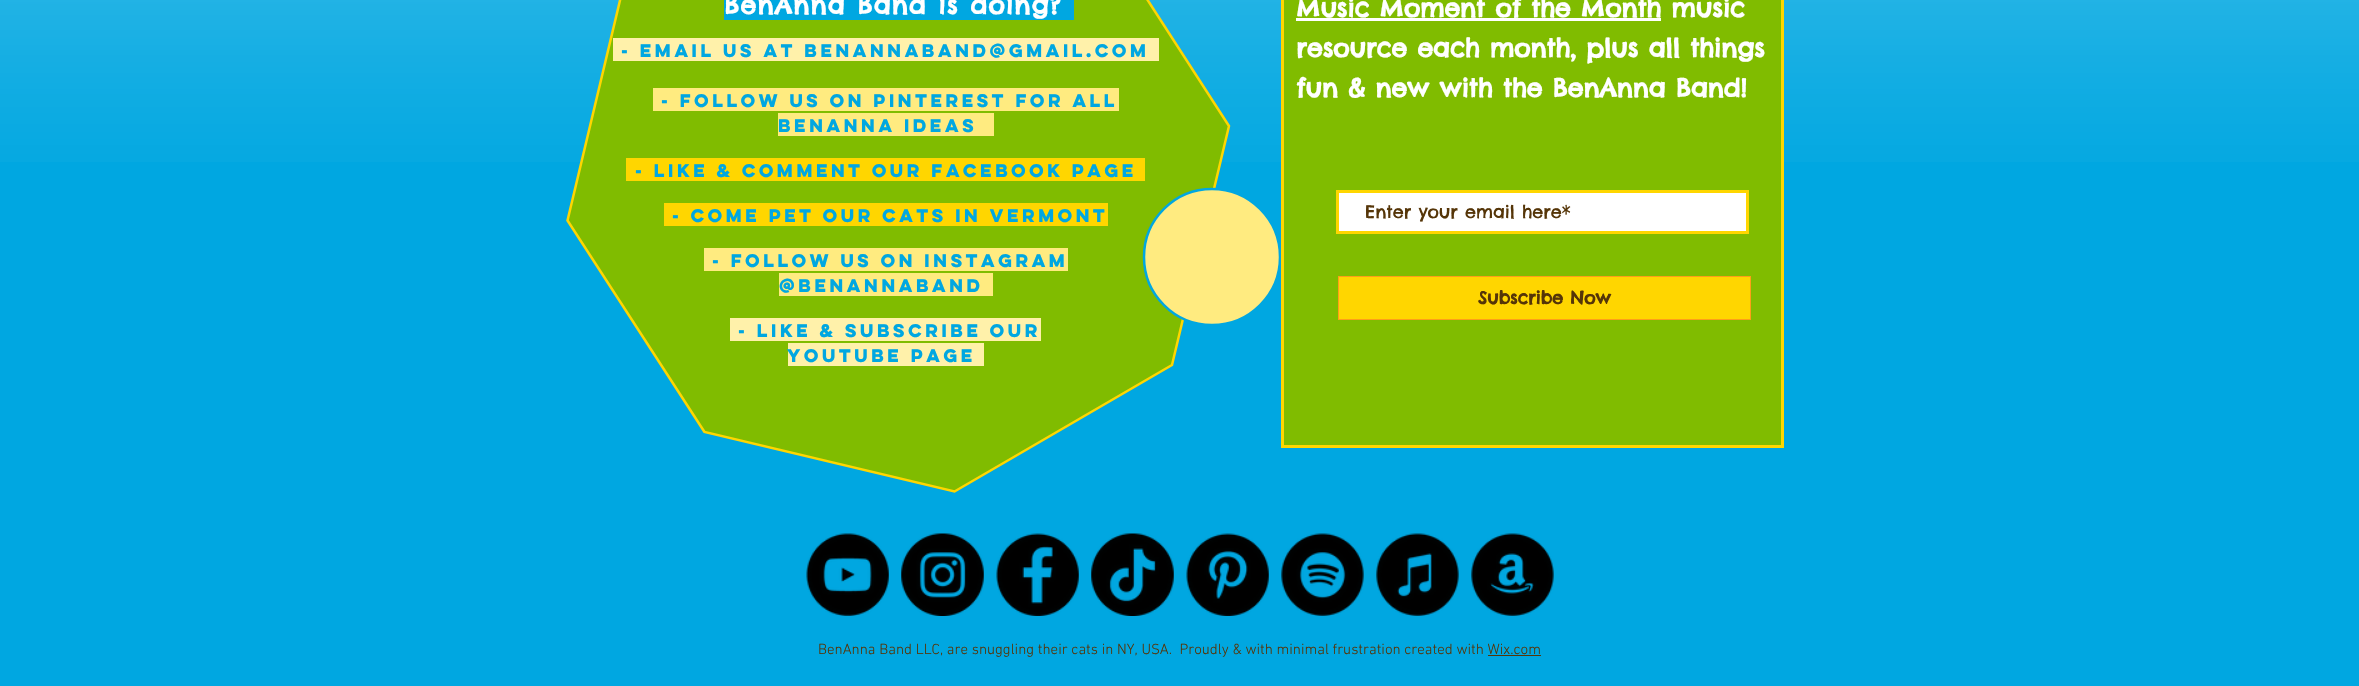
void draw(SkCanvas* c) {
SkPaint p;
p.setAntiAlias(true);
auto F=[&](const char* family, int weight, float size, bool italic = false){SkFontStyle style(weight, SkFontStyle::kNormal_Width,italic ? SkFontStyle::kItalic_Slant : SkFontStyle::kUpright_Slant);SkFont result(fontMgr->matchFamilyStyle(family, style), size);result.setSubpixel(true);return result;};
auto T=[&](const char* s, float x, float y, const SkFont& font){c->drawString(s, x, y, font, p);};
auto L=[&](const char* s, float x, float y, const SkFont& font, const SkPaint& ink, float letter, float word){std::vector<SkGlyphID> glyphs(font.countText(s, strlen(s), SkTextEncoding::kUTF8));std::vector<float> xs(glyphs.size());font.textToGlyphs(s, strlen(s), SkTextEncoding::kUTF8, glyphs);font.getXPos(glyphs, xs, x);float extra = 0;for (size_t i = 0; i < glyphs.size(); i++) {xs[i] += extra;extra += letter + word * (glyphs[i] == font.unicharToGlyph(' '));}c->drawTextBlob(SkTextBlob::MakeFromPosHGlyphs(glyphs, xs, y, font), 0, 0, ink);};
auto R=[&](float x, float y, float w, float h){c->drawRect(SkRect::MakeXYWH(x, y, w, h), p);};
auto I=[&](const char* path, float x, float y, float w, float h){auto image = SkImages::DeferredFromEncodedData(SkData::MakeFromFileName(path));c->drawImageRect(image, SkRect::MakeXYWH(x, y, w, h), SkSamplingOptions());};
auto P=[&](const char* data, bool evenOdd = false){SkPath result = *SkParsePath::FromSVGString(data);if (evenOdd) result.setFillType(SkPathFillType::kEvenOdd);return result;};
c->clear(0xff00a7e1);
I("1.png",0,0,2359,162);
p.setColor(0xff80bc00);
c->drawPath(P("M704 432l-136-212l57-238l217-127l250 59l137 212l-57 239l-218 127z"),p);
p.setStroke(true);
p.setStrokeWidth(2.5);
p.setColor(0xffffd600);
c->drawPath(P("M704.5 432l-137-211.5l57-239l217.5-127l250 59.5l137 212l-57 239l-217.5 126.5z"),p);
p.setStroke(false);
p.setColor(0xff00a7e1);
R(724,0,350,20);
auto f1 = F("Chelsea Market",700,25);
p.setColor(0xffffffff);
L("BenAnna Band is doing?",724,14,f1,p,1.25,0);
p.setColor(0xffffeb80);
c->drawPath(P("M1280 257c0 37-31 68-68 68c-38 0-68-31-68-68c0-38 30-68 68-68c37 0 68 30 68 68z"),p);
p.setStroke(true);
p.setColor(0xff00a7e1);
c->drawPath(P("M1280 257c0 37.5-30.5 68-68 68c-37.5 0-68-30.5-68-68c0-37.5 30.5-68 68-68c37.5 0 68 30.5 68 68z"),p);
p.setStroke(false);
p.setColor(0xff80bc00);
c->drawRect(SkRect::MakeXYWH(1282.5,-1.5,500,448),p);
p.setStroke(true);
p.setStrokeWidth(3);
p.setColor(0xffffd600);
c->drawRect(SkRect::MakeXYWH(1282.5,-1.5,500,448),p);
p.setStroke(false);
p.setColor(0xffffffff);
T("Music Moment of the Month music",1296,17,f1);
R(1296,18,365,3);
T("resource each month, plus all things",1296,57,f1);
T("fun & new with the BenAnna Band!",1296,97,f1);
c->drawRect(SkRect::MakeXYWH(1337.5,191.5,410,41),p);
p.setStroke(true);
p.setColor(0xffffd600);
c->drawRect(SkRect::MakeXYWH(1337.5,191.5,410,41),p);
auto f2 = F("Chelsea Market",400,17.5);
p.setStroke(false);
p.setColor(0xff553508);
T("Enter your email here*",1365,218,f2);
p.setColor(0xffffd600);
c->drawRect(SkRect::MakeXYWH(1338.5,276.5,412,43),p);
p.setStroke(true);
p.setStrokeWidth(1);
p.setColor(0xffff9e18);
c->drawRect(SkRect::MakeXYWH(1338.5,276.5,412,43),p);
auto f3 = F("Chelsea Market",700,17.5);
p.setStroke(false);
p.setColor(0xff553508);
T("Subscribe Now",1478,304,f3);
p.setColor(0xfffff1aa);
R(613,38,546,23);
auto f4 = F("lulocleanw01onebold",700,16.25);
p.setColor(0xff00a7e1);
T("- Email us at benannaband@gmail.com",621,57,f4);
p.setColor(0xffffeb80);
R(653,88,466,23);
p.setColor(0xff00a7e1);
T("- Follow us on Pinterest for all",661,107,f4);
p.setColor(0xffffeb80);
R(778,113,216,23);
p.setColor(0xff00a7e1);
T("BenAnna ideas",778,132,f4);
p.setColor(0xffffd600);
R(626,158,519,23);
p.setColor(0xff00a7e1);
T("- Like & comment our Facebook Page",635,177,f4);
p.setColor(0xffffd600);
R(664,203,444,23);
p.setColor(0xff00a7e1);
T("- Come pet our cats in Vermont",672,222,f4);
p.setColor(0xffffeb80);
R(704,248,364,23);
p.setColor(0xff00a7e1);
T("- Follow us on Instagram",712,267,f4);
p.setColor(0xffffeb80);
R(779,273,214,23);
p.setColor(0xff00a7e1);
T("@benannaband",779,292,f4);
p.setColor(0xfffff1aa);
R(730,318,311,23);
p.setColor(0xff00a7e1);
T("- Like & subscribe our",738,337,f4);
p.setColor(0xfffff1aa);
R(788,343,196,23);
p.setColor(0xff00a7e1);
T("YouTube Page",787,362,f4);
I("2.png",806,533,83,83);
I("3.png",901,533,83,83);
I("4.png",996,533,83,83);
I("5.png",1091,533,83,83);
I("6.png",1186,533,83,83);
I("7.png",1281,533,83,83);
I("8.png",1376,533,83,83);
I("9.png",1471,533,83,83);
auto f5 = F("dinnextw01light",300,15);
p.setColor(0xff553508);
T("BenAnna Band LLC, are snuggling their cats in NY, USA.  Proudly & with minimal frustration created with Wix.com",818,654,f5);
R(1488,655,53,1);
}
